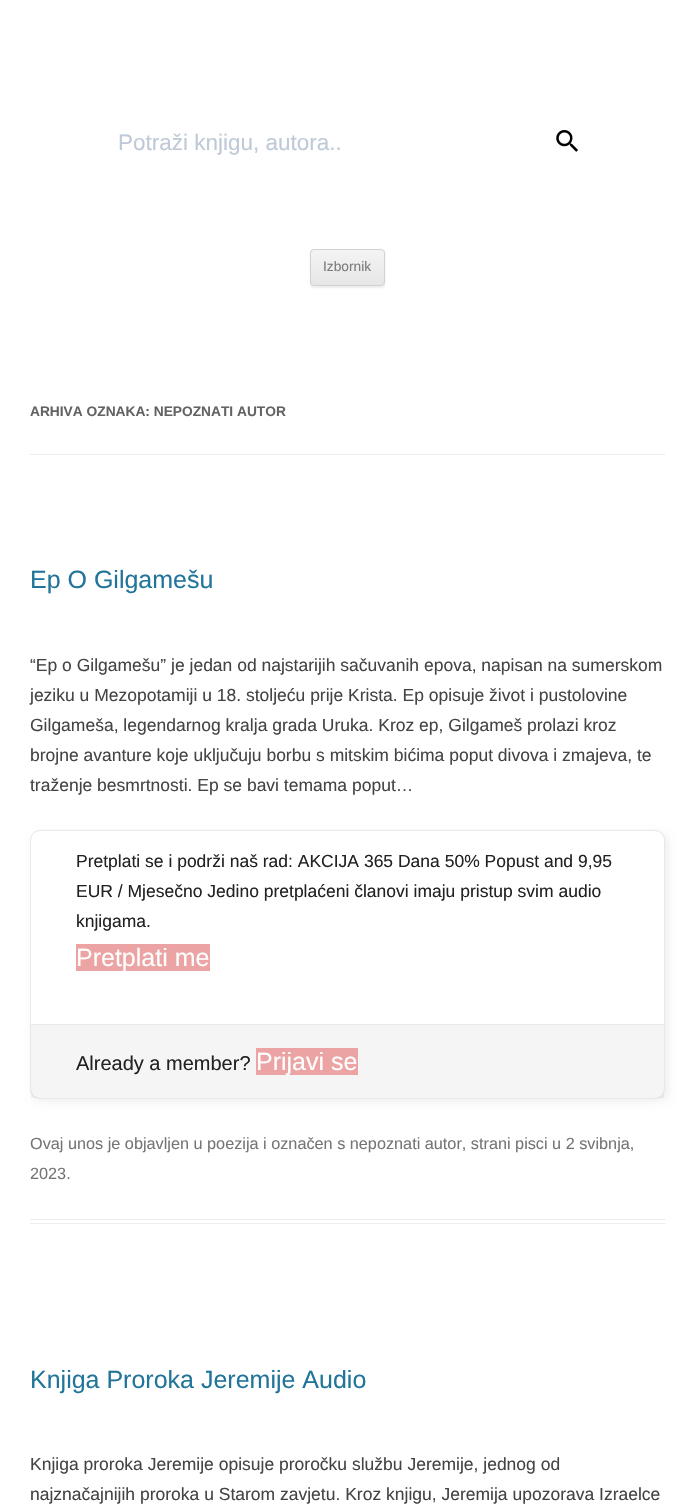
void draw(SkCanvas* c) {
SkPaint p;
p.setAntiAlias(true);
auto F=[&](const char* family, int weight, float size, bool italic = false){SkFontStyle style(weight, SkFontStyle::kNormal_Width,italic ? SkFontStyle::kItalic_Slant : SkFontStyle::kUpright_Slant);SkFont result(fontMgr->matchFamilyStyle(family, style), size);result.setSubpixel(true);return result;};
auto T=[&](const char* s, float x, float y, const SkFont& font){c->drawString(s, x, y, font, p);};
auto R=[&](float x, float y, float w, float h){c->drawRect(SkRect::MakeXYWH(x, y, w, h), p);};
auto I=[&](const char* path, float x, float y, float w, float h){auto image = SkImages::DeferredFromEncodedData(SkData::MakeFromFileName(path));c->drawImageRect(image, SkRect::MakeXYWH(x, y, w, h), SkSamplingOptions());};
auto P=[&](const char* data, bool evenOdd = false){SkPath result = *SkParsePath::FromSVGString(data);if (evenOdd) result.setFillType(SkPathFillType::kEvenOdd);return result;};
c->clear(0xffffffff);
auto f1 = F("Liberation Sans",400,22.5);
p.setColor(0xffbfcad8);
T("Potraži knjigu, autora..",118,150,f1);
I("1.png",556,130,22,22);
p.setColor(0x1a404040);
p.setMaskFilter(SkMaskFilter::MakeBlur(kNormal_SkBlurStyle, 1));
c->drawRoundRect(SkRect::MakeXYWH(310,250,75,38),4,4,p);
p.setMaskFilter(nullptr);
c->save();
c->clipPath(P("M314 249h67c2 0 4 2 4 4v29c0 2-2 4-4 4h-67c-2 0-4-2-4-4v-29c0-2 2-4 4-4z"),true);
{
const SkColor colors[] = {0xfff4f4f4,0xffe6e6e6};
const float stops[] = {0,1};
const SkPoint ends[] = {{348,250}, {348,285}};
p.setShader(SkGradientShader::MakeLinear(ends, colors, stops, 2, SkTileMode::kClamp));
p.setAlpha(255);
}
R(310,250,75,35);
c->restore();
p.setStroke(true);
p.setStrokeWidth(1);
p.setShader(nullptr);
p.setColor(0xffd2d2d2);
c->drawRoundRect(SkRect::MakeXYWH(310.5,249.5,74,36),3.5,3.5,p);
auto f2 = F("Liberation Sans",400,13.75);
p.setStroke(false);
p.setColor(0xff7c7c7c);
T("Izbornik",323,271,f2);
p.setColor(0xffededed);
R(30,454,635,1);
auto f3 = F("Liberation Sans",700,13.75);
p.setColor(0xff636363);
T("ARHIVA OZNAKA: NEPOZNATI AUTOR",30,416,f3);
p.setColor(0xffededed);
R(30,1219,635,1);
R(30,1223,635,1);
auto f4 = F("Liberation Sans",400,25);
p.setColor(0xff21759b);
T("Ep O Gilgamešu",30,588,f4);
auto f5 = F("Liberation Sans",400,17.5);
p.setColor(0xff444444);
T("“Ep o Gilgamešu” je jedan od najstarijih sačuvanih epova, napisan na sumerskom",30,671,f5);
T("jeziku u Mezopotamiji u 18. stoljeću prije Krista. Ep opisuje život i pustolovine",30,701,f5);
T("Gilgameša, legendarnog kralja grada Uruka. Kroz ep, Gilgameš prolazi kroz",30,731,f5);
T("brojne avanture koje uključuju borbu s mitskim bićima poput divova i zmajeva, te",30,761,f5);
T("traženje besmrtnosti. Ep se bavi temama poput…",30,791,f5);
p.setColor(0x12000000);
p.setMaskFilter(SkMaskFilter::MakeBlur(kNormal_SkBlurStyle, 4.5));
c->drawRoundRect(SkRect::MakeXYWH(33,833,635,268),10,10,p);
p.setMaskFilter(nullptr);
p.setColor(0xffffffff);
c->drawRoundRect(SkRect::MakeXYWH(30.5,830.5,634,268),9.5,9.5,p);
p.setStroke(true);
p.setColor(0xffe8e8e8);
c->drawRoundRect(SkRect::MakeXYWH(30.5,830.5,634,268),9.5,9.5,p);
p.setStroke(false);
p.setColor(0xff222222);
T("Pretplati se i podrži naš rad: AKCIJA 365 Dana 50% Popust and 9,95",76,867,f5);
T("EUR / Mjesečno Jedino pretplaćeni članovi imaju pristup svim audio",76,897,f5);
T("knjigama.",76,927,f5);
p.setColor(0xffeba3a3);
R(76,944,134,27);
p.setColor(0xffffffff);
T("Pretplati me",76,966,f4);
p.setColor(0x0a000000);
R(31,1025,633,73);
p.setColor(0xffe8e8e8);
R(31,1024,633,1);
auto f6 = F("Liberation Sans",400,20);
p.setColor(0xff222222);
T("Already a member?",76,1070,f6);
p.setColor(0xffeba3a3);
R(256,1048,102,27);
p.setColor(0xffffffff);
T("Prijavi se",256,1070,f4);
auto f7 = F("Liberation Sans",400,16.25);
p.setColor(0xff757575);
T("Ovaj unos je objavljen u poezija i označen s nepoznati autor, strani pisci u 2 svibnja,",30,1149,f7);
T("2023.",30,1179,f7);
p.setColor(0xff21759b);
T("Knjiga Proroka Jeremije Audio",30,1388,f4);
p.setColor(0xff444444);
T("Knjiga proroka Jeremije opisuje proročku službu Jeremije, jednog od",30,1470,f5);
T("najznačajnijih proroka u Starom zavjetu. Kroz knjigu, Jeremija upozorava Izraelce",30,1500,f5);
}
